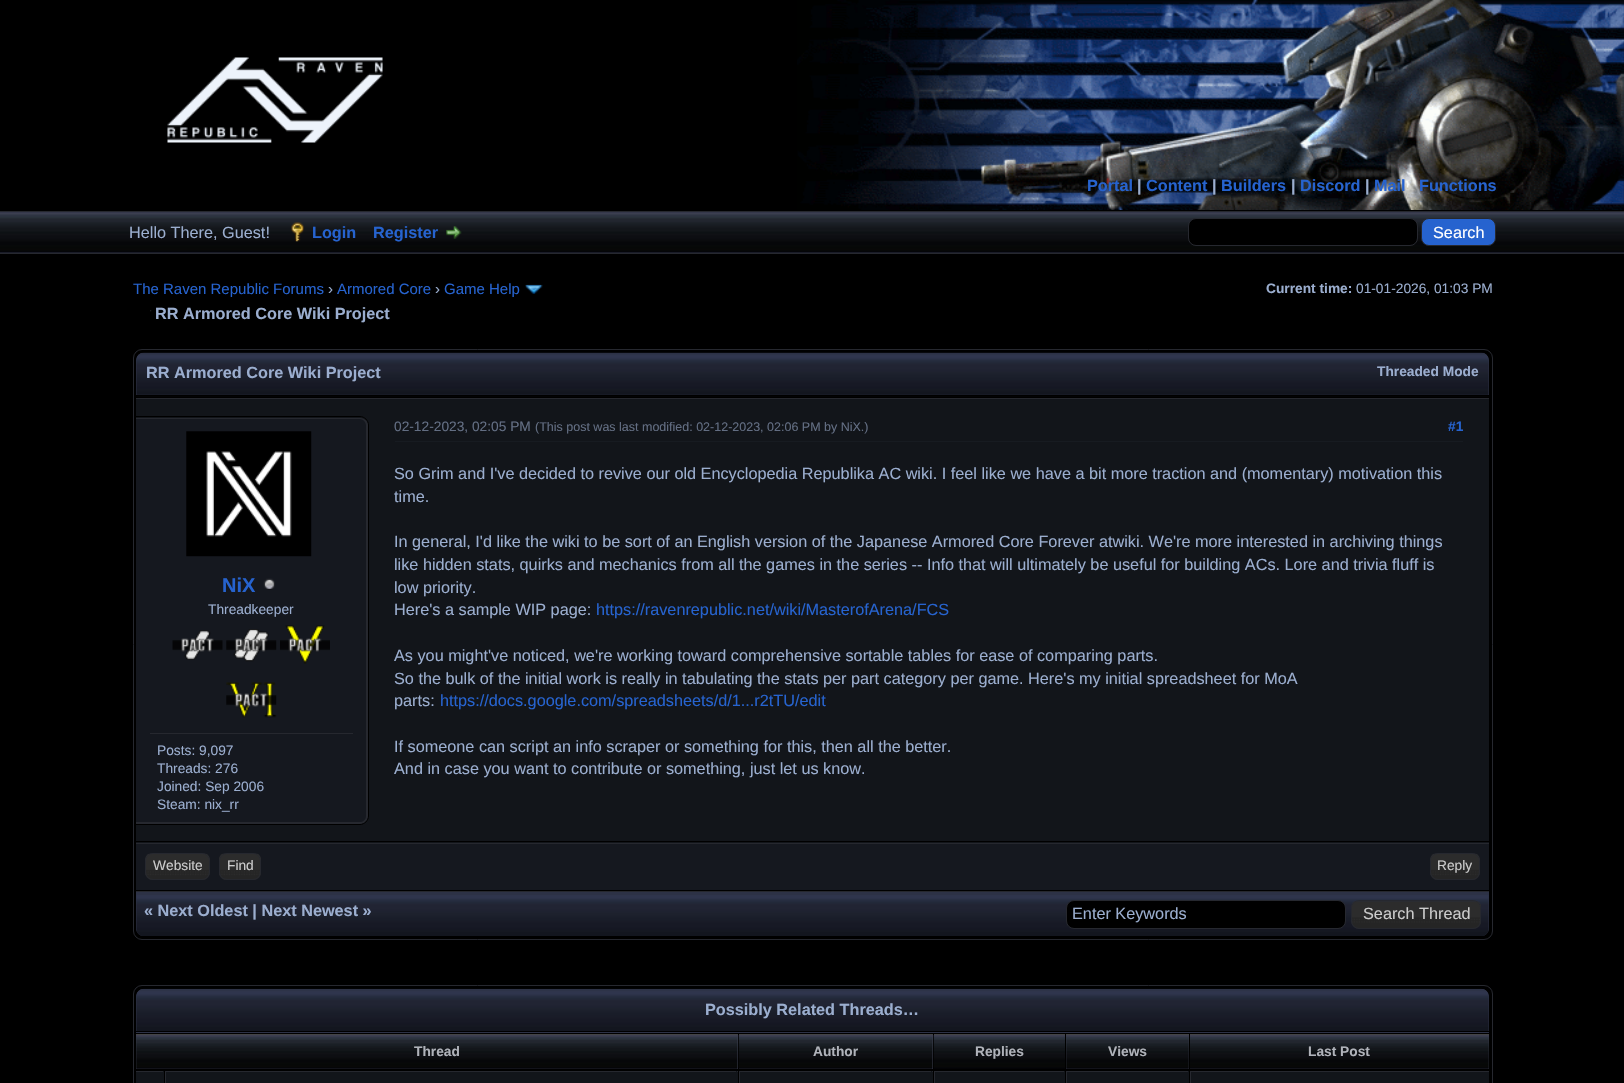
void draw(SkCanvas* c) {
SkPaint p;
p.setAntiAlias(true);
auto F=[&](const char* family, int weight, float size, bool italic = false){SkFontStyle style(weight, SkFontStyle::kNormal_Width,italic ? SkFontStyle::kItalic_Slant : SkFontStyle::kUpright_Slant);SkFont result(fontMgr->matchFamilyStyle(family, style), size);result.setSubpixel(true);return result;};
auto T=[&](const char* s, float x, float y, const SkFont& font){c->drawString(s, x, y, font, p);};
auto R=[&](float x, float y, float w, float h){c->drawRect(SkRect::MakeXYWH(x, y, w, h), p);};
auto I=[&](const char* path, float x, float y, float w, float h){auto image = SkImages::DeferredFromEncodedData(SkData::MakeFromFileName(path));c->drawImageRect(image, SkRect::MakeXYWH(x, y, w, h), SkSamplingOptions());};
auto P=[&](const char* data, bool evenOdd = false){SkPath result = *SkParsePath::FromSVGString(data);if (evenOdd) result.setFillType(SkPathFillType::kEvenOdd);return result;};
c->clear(0xff000000);
I("1.png",797,0,827,210);
I("2.png",167,57,216,86);
auto f1 = F("Liberation Sans",700,16.25);
p.setColor(0xff2663cf);
T("Portal",1087,191,f1);
p.setColor(0xff9baecf);
T("|",1137,191,f1);
p.setColor(0xff2663cf);
T("Content",1146,191,f1);
p.setColor(0xff9baecf);
T("|",1212,191,f1);
p.setColor(0xff2663cf);
T("Builders",1221,191,f1);
p.setColor(0xff9baecf);
T("|",1291,191,f1);
p.setColor(0xff2663cf);
T("Discord",1300,191,f1);
p.setColor(0xff9baecf);
T("|",1365,191,f1);
p.setColor(0xff2663cf);
T("Mail",1374,191,f1);
T("Functions",1419,191,f1);
p.setColor(0xff2d3246);
R(0,212,1624,41);
I("3.png",0,212,1624,41);
p.setColor(0xff26282f);
R(0,211,1624,1);
R(0,253,1624,1);
auto f2 = F("Liberation Sans",400,16.25);
p.setColor(0xff9baecf);
T("Hello There, Guest!",129,238,f2);
I("4.png",291,222,13,20);
p.setColor(0xff2663cf);
T("Login",312,238,f1);
T("Register",373,238,f1);
I("5.png",446,226,16,13);
p.setColor(0xff000000);
c->drawRoundRect(SkRect::MakeXYWH(1188.5,218.5,229,27),7.5,7.5,p);
p.setStroke(true);
p.setStrokeWidth(1);
p.setColor(0xff26282f);
c->drawRoundRect(SkRect::MakeXYWH(1188.5,218.5,229,27),7.5,7.5,p);
p.setStroke(false);
p.setColor(0xff2663cf);
c->drawRoundRect(SkRect::MakeXYWH(1421.5,218.5,74,27),7.5,7.5,p);
p.setStroke(true);
p.setColor(0xff26282f);
c->drawRoundRect(SkRect::MakeXYWH(1421.5,218.5,74,27),7.5,7.5,p);
p.setStroke(false);
p.setColor(0xffffffff);
T("Search",1433,238,f2);
auto f3 = F("Liberation Sans",400,15);
p.setColor(0xff2663cf);
T("The Raven Republic Forums",133,294,f3);
p.setColor(0xff9baecf);
T("›",328,294,f3);
p.setColor(0xff2663cf);
T("Armored Core",337,294,f3);
p.setColor(0xff9baecf);
T("›",435,294,f3);
p.setColor(0xff2663cf);
T("Game Help",444,294,f3);
I("6.png",525,284,18,10);
I("7.png",150,310,2,2);
p.setColor(0xff9baecf);
T("RR Armored Core Wiki Project",155,319,f1);
auto f4 = F("Liberation Sans",700,13.75);
T("Current time:",1266,293,f4);
auto f5 = F("Liberation Sans",400,13.75);
T("01-01-2026, 01:03 PM",1356,293,f5);
p.setStroke(true);
p.setColor(0xff26282f);
c->drawRoundRect(SkRect::MakeXYWH(133.5,349.5,1359,590),8.5,8.5,p);
p.setStroke(false);
p.setColor(0xff2d3246);
c->drawPath(P("M144 353h1337c4.5 0 8 3.5 8 8v35h-1353v-35c0-4.5 3.5-8 8-8z"),p);
I("8.png",136,352,1353,45);
p.setColor(0xff000000);
R(136,395,1353,1);
p.setColor(0xff9baecf);
T("RR Armored Core Wiki Project",146,378,f1);
T("Threaded Mode",1377,376,f4);
p.setColor(0xff12151a);
R(136,399,1353,444);
p.setColor(0xff26282f);
R(136,398,1353,1);
p.setColor(0xff15181f);
c->drawPath(P("M136 418h224c4.5 0 8 3.5 8 8v390c0 4.5-3.5 8-8 8h-224z"),p);
p.setColor(0xff26282f);
c->drawPath(P("M136 418h224c4 0 8 3 8 7v391c0 4-4 8-8 8h-224zm0 1h224c3 0 6 3 6 6v391c0 4-3 6-6 6h-224z",true),p);
I("9.png",186,431,126,126);
I("10.png",263,578,12,12);
I("11.png",172,630,51,30);
I("12.png",226,629,51,33);
I("13.png",280,625,50,39);
I("14.png",226,682,51,36);
R(150,733,203,1);
c->save();
c->clipRect(SkRect::MakeXYWH(136,399,1353,491));
p.setStroke(true);
p.setColor(0xff000000);
c->drawPath(P("M135.5 416.5h224.5c4.5 0 8.5 4 8.5 8.5v391c0 4.5-4 8.5-8.5 8.5h-224.5z"),p);
c->restore();
auto f6 = F("Liberation Sans",700,20);
p.setStroke(false);
p.setColor(0xff2663cf);
T("NiX",222,592,f6);
p.setColor(0xff9baecf);
T("Threadkeeper",208,614,f5);
T("Posts: 9,097",157,755,f5);
T("Threads: 276",157,773,f5);
T("Joined: Sep 2006",157,791,f5);
T("Steam: nix_rr",157,809,f5);
p.setColor(0xff171b21);
R(395,441,1068,1);
p.setColor(0xff636e83);
T("02-12-2023, 02:05 PM",394,431,f5);
auto f7 = F("Liberation Sans",400,12.5);
T("(This post was last modified: 02-12-2023, 02:06 PM by NiX.)",535,431,f7);
p.setColor(0xff2663cf);
T("#1",1448,431,f4);
p.setColor(0xff9baecf);
T("So Grim and I've decided to revive our old Encyclopedia Republika AC wiki. I feel like we have a bit more traction and (momentary) motivation this",394,479,f2);
T("time.",394,502,f2);
T("In general, I'd like the wiki to be sort of an English version of the Japanese Armored Core Forever atwiki. We're more interested in archiving things",394,547,f2);
T("like hidden stats, quirks and mechanics from all the games in the series -- Info that will ultimately be useful for building ACs. Lore and trivia fluff is",394,570,f2);
T("low priority.",394,593,f2);
T("Here's a sample WIP page:",394,615,f2);
p.setColor(0xff2663cf);
T("https://ravenrepublic.net/wiki/MasterofArena/FCS",596,615,f2);
p.setColor(0xff9baecf);
T("As you might've noticed, we're working toward comprehensive sortable tables for ease of comparing parts.",394,661,f2);
T("So the bulk of the initial work is really in tabulating the stats per part category per game. Here's my initial spreadsheet for MoA",394,684,f2);
T("parts:",394,706,f2);
p.setColor(0xff2663cf);
T("https://docs.google.com/spreadsheets/d/1...r2tTU/edit",440,706,f2);
p.setColor(0xff9baecf);
T("If someone can script an info scraper or something for this, then all the better.",394,752,f2);
T("And in case you want to contribute or something, just let us know.",394,774,f2);
p.setColor(0xff15181f);
R(136,844,1353,46);
p.setColor(0xff26282f);
R(136,843,1353,1);
I("15.png",145,853,65,27);
p.setStroke(true);
c->drawRoundRect(SkRect::MakeXYWH(145.5,853.5,64,26),7.5,7.5,p);
I("16.png",219,853,42,27);
c->drawRoundRect(SkRect::MakeXYWH(219.5,853.5,41,26),7.5,7.5,p);
I("17.png",1430,853,50,27);
c->drawRoundRect(SkRect::MakeXYWH(1430.5,853.5,49,26),7.5,7.5,p);
c->save();
c->clipRect(SkRect::MakeXYWH(136,399,1353,491));
p.setColor(0xff000000);
c->drawRect(SkRect::MakeXYWH(135.5,841.5,1354,49),p);
c->restore();
p.setStroke(false);
p.setColor(0xffcccccc);
T("Website",153,870,f5);
T("Find",227,870,f5);
T("Reply",1437,870,f5);
p.setColor(0xff2d3246);
c->drawPath(P("M136 891h1353v37c0 4.5-3.5 8-8 8h-1337c-4.5 0-8-3.5-8-8z"),p);
I("18.png",136,895,1353,41);
p.setColor(0xff26282f);
R(136,891,1353,1);
p.setColor(0xff9baecf);
T("« Next Oldest | Next Newest »",144,916,f1);
p.setColor(0xff000000);
c->drawRoundRect(SkRect::MakeXYWH(1066.5,900.5,279,28),7.5,7.5,p);
p.setStroke(true);
p.setColor(0xff26282f);
c->drawRoundRect(SkRect::MakeXYWH(1066.5,900.5,279,28),7.5,7.5,p);
p.setStroke(false);
p.setColor(0xff9baecf);
T("Enter Keywords",1072,919,f2);
I("19.png",1351,901,130,28);
p.setStroke(true);
p.setColor(0xff26282f);
c->drawRoundRect(SkRect::MakeXYWH(1351.5,900.5,129,28),7.5,7.5,p);
p.setStroke(false);
p.setColor(0xffcccccc);
T("Search Thread",1363,919,f2);
p.setStroke(true);
p.setColor(0xff26282f);
c->drawRoundRect(SkRect::MakeXYWH(133.5,985.5,1359,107),8.5,8.5,p);
p.setStroke(false);
p.setColor(0xff2d3246);
c->drawPath(P("M144 989h1337c4.5 0 8 3.5 8 8v36h-1353v-36c0-4.5 3.5-8 8-8z"),p);
I("20.png",136,988,1353,43);
p.setColor(0xff000000);
R(136,1031,1353,1);
p.setColor(0xff9baecf);
T("Possibly Related Threads…",705,1015,f1);
p.setColor(0xff3c3f50);
R(136,1035,602,34);
I("21.png",136,1036,602,33);
p.setColor(0xff444444);
R(136,1034,602,1);
p.setColor(0xffb0b3ba);
T("Thread",414,1056,f4);
p.setColor(0xff3c3f50);
R(739,1035,194,34);
I("22.png",738,1035,195,34);
p.setColor(0xff444444);
R(739,1034,194,1);
p.setColor(0xffb0b3ba);
T("Author",813,1056,f4);
I("23.png",933,1035,132,34);
p.setColor(0xff444444);
R(934,1034,131,1);
p.setColor(0xffb0b3ba);
T("Replies",975,1056,f4);
p.setColor(0xff3c3f50);
R(1066,1035,123,34);
I("24.png",1066,1036,123,33);
p.setColor(0xff444444);
R(1066,1034,123,1);
p.setColor(0xffb0b3ba);
T("Views",1108,1056,f4);
p.setColor(0xff3c3f50);
R(1190,1035,299,34);
I("25.png",1190,1036,299,33);
p.setColor(0xff444444);
R(1190,1034,299,1);
p.setColor(0xffb0b3ba);
T("Last Post",1308,1056,f4);
p.setColor(0xff12151a);
R(136,1072,27,11);
p.setColor(0xff26282f);
R(136,1071,28,1);
p.setColor(0xff12151a);
R(163,1071,1,12);
R(166,1072,572,11);
p.setColor(0xff26282f);
R(165,1071,573,1);
p.setColor(0xff12151a);
R(736,1071,1,1);
p.setColor(0xff26282f);
R(165,1071,1,12);
p.setColor(0xff12151a);
R(740,1072,193,11);
p.setColor(0xff26282f);
R(739,1071,194,1);
p.setColor(0xff12151a);
R(931,1071,1,1);
p.setColor(0xff26282f);
R(739,1071,1,12);
p.setColor(0xff12151a);
R(935,1072,129,11);
p.setColor(0xff26282f);
R(934,1071,131,1);
p.setColor(0xff12151a);
R(1064,1071,1,12);
p.setColor(0xff26282f);
R(934,1071,1,12);
p.setColor(0xff12151a);
R(1067,1072,121,11);
p.setColor(0xff26282f);
R(1066,1071,123,1);
p.setColor(0xff12151a);
R(1188,1071,1,12);
p.setColor(0xff26282f);
R(1066,1071,1,12);
p.setColor(0xff12151a);
R(1191,1072,298,11);
p.setColor(0xff26282f);
R(1190,1071,299,1);
R(1190,1071,1,12);
}
